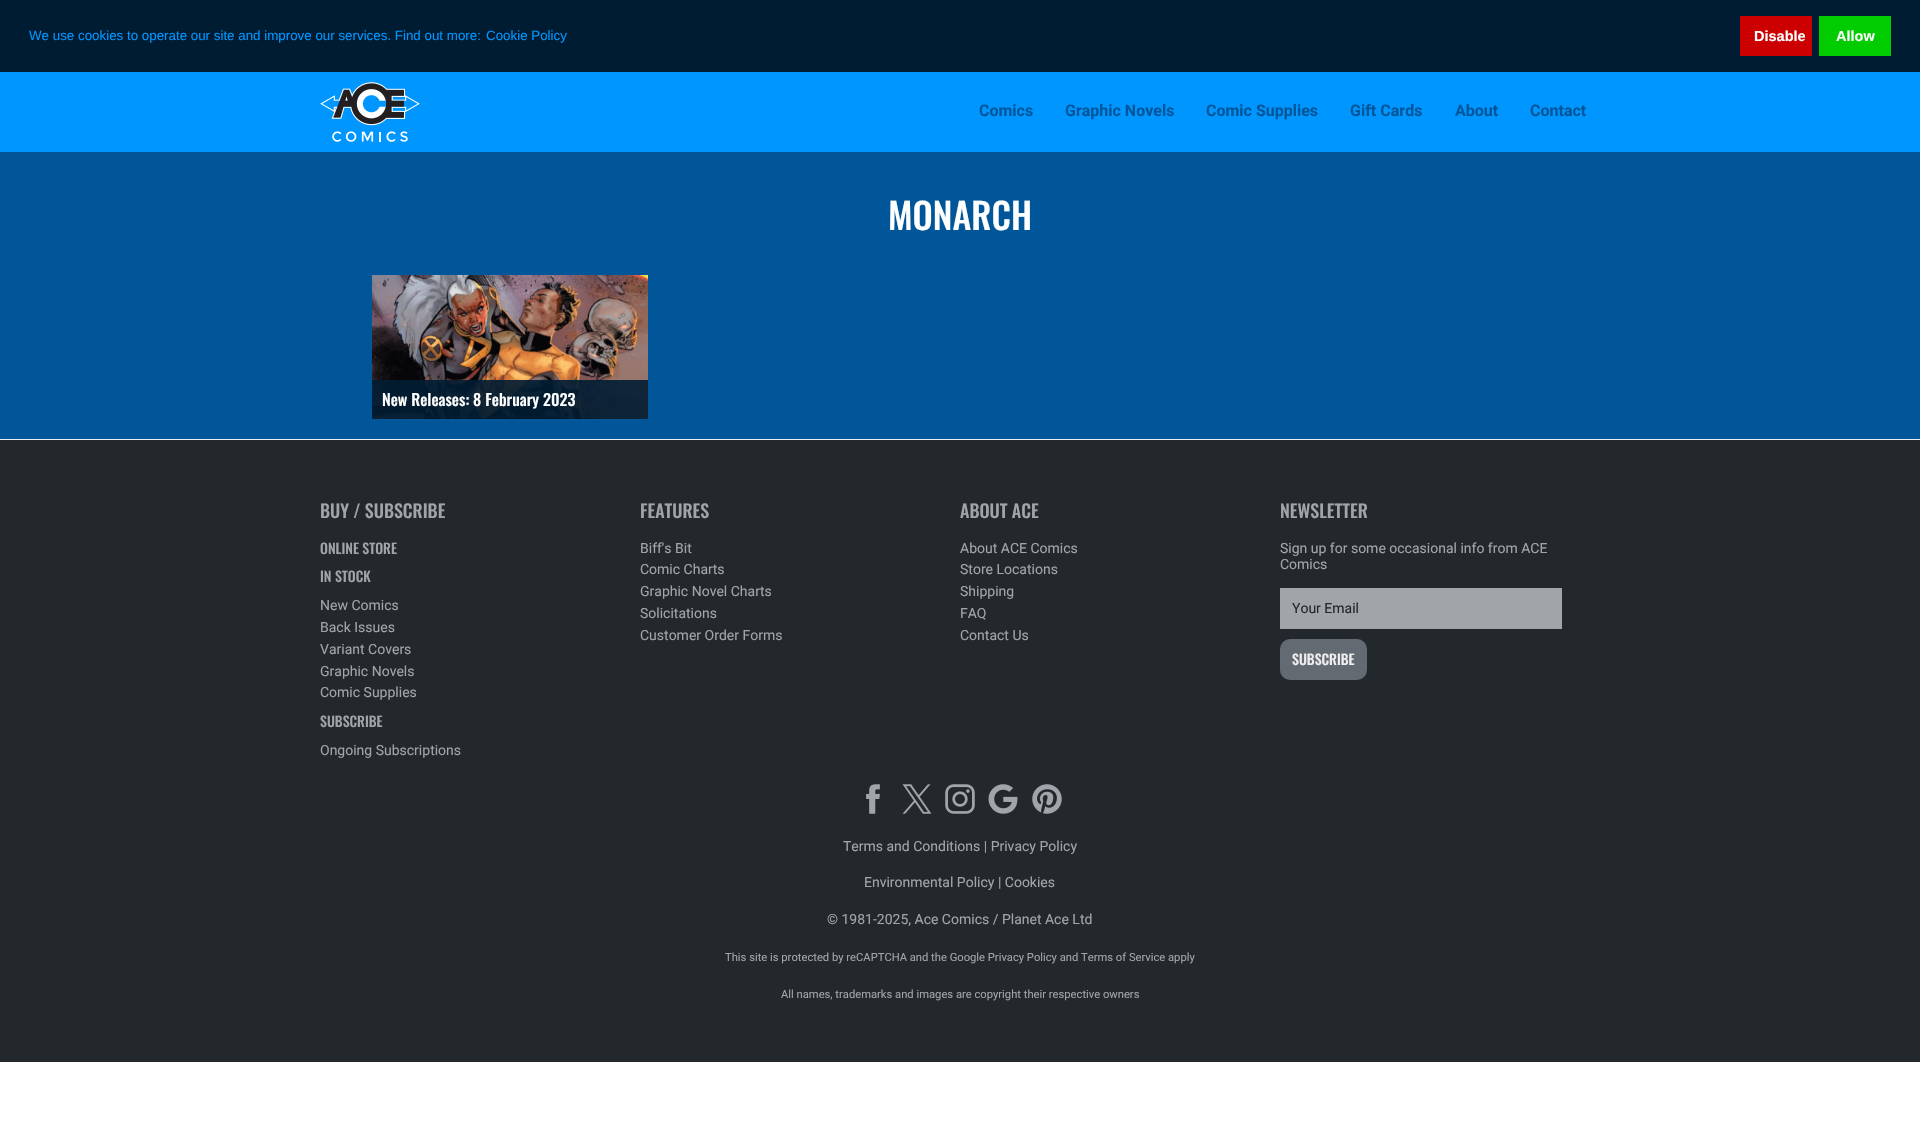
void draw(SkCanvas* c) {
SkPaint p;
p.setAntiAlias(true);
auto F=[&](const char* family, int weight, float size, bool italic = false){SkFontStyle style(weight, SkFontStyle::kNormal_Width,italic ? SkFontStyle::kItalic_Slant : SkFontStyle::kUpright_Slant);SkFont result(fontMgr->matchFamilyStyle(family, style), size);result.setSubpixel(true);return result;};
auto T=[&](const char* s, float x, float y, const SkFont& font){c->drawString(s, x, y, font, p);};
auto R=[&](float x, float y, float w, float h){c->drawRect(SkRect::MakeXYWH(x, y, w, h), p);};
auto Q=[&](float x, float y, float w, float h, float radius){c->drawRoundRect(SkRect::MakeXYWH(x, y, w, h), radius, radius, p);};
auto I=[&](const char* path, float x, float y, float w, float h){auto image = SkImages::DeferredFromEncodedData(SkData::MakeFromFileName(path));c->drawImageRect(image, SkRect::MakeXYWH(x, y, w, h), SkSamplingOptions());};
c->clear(0xffffffff);
p.setColor(0xff001c32);
R(0,0,1920,72);
auto f1 = F("Liberation Sans",400,13.35);
p.setColor(0xff0096ff);
T("We use cookies to operate our site and improve our services. Find out more:",29,40,f1);
T("Cookie Policy",486,40,f1);
p.setColor(0xffcc0000);
R(1740,16,72,40);
auto f2 = F("Liberation Sans",700,14.5);
p.setColor(0xffffffff);
T("Disable",1754,41,f2);
p.setColor(0xff00cc00);
R(1819,16,72,40);
p.setColor(0xffffffff);
T("Allow",1836,41,f2);
p.setColor(0xff0096ff);
R(0,72,1920,80);
I("1.png",320,82,100,60);
auto f3 = F("Roboto",700,16);
p.setColor(0xff005699);
T("Comics",979,116,f3);
T("Graphic Novels",1065,116,f3);
T("Comic Supplies",1206,116,f3);
T("Gift Cards",1350,116,f3);
T("About",1455,116,f3);
T("Contact",1530,116,f3);
R(0,152,1920,287);
auto f4 = F("Oswald",500,36);
p.setColor(0xffffffff);
T("MONARCH",888,230,f4);
I("2.png",372,275,276,144);
p.setColor(0xe6001c32);
R(372,380,276,39);
auto f5 = F("Oswald",500,16);
p.setColor(0xffffffff);
T("New Releases: 8 February 2023",382,406,f5);
p.setColor(0xff23282d);
R(0,440,1920,622);
p.setColor(0xffeeeeee);
R(0,439,1920,1);
auto f6 = F("Oswald",500,18);
p.setColor(0xffa0a5aa);
T("BUY / SUBSCRIBE",320,518,f6);
auto f7 = F("Oswald",500,14);
T("ONLINE STORE",320,554,f7);
T("IN STOCK",320,582,f7);
auto f8 = F("Roboto",400,14);
T("New Comics",320,610,f8);
T("Back Issues",320,632,f8);
T("Variant Covers",320,654,f8);
T("Graphic Novels",320,676,f8);
T("Comic Supplies",320,697,f8);
T("SUBSCRIBE",320,727,f7);
T("Ongoing Subscriptions",320,755,f8);
T("FEATURES",640,518,f6);
T("Biff's Bit",640,553,f8);
T("Comic Charts",640,574,f8);
T("Graphic Novel Charts",640,596,f8);
T("Solicitations",640,618,f8);
T("Customer Order Forms",640,640,f8);
T("ABOUT ACE",960,518,f6);
T("About ACE Comics",960,553,f8);
T("Store Locations",960,574,f8);
T("Shipping",960,596,f8);
T("FAQ",960,618,f8);
T("Contact Us",960,640,f8);
T("NEWSLETTER",1280,518,f6);
T("Sign up for some occasional info from ACE",1280,553,f8);
T("Comics",1280,569,f8);
R(1280,588,282,41);
p.setColor(0xff23282d);
T("Your Email",1292,613,f8);
p.setColor(0xff636a72);
Q(1280,639,87,41,10);
p.setColor(0xffeeeeee);
T("SUBSCRIBE",1292,665,f7);
I("3.png",866,784,14,30);
I("4.png",902,784,30,30);
I("5.png",945,784,30,30);
I("6.png",988,784,30,30);
I("7.png",1032,784,30,30);
p.setColor(0xffa0a5aa);
T("Terms and Conditions | Privacy Policy",843,851,f8);
T("Environmental Policy | Cookies",864,887,f8);
T("© 1981-2025, Ace Comics / Planet Ace Ltd",827,924,f8);
auto f9 = F("Roboto",400,11.2);
T("This site is protected by reCAPTCHA and the Google Privacy Policy and Terms of Service apply",725,961,f9);
T("All names, trademarks and images are copyright their respective owners",781,998,f9);
}
